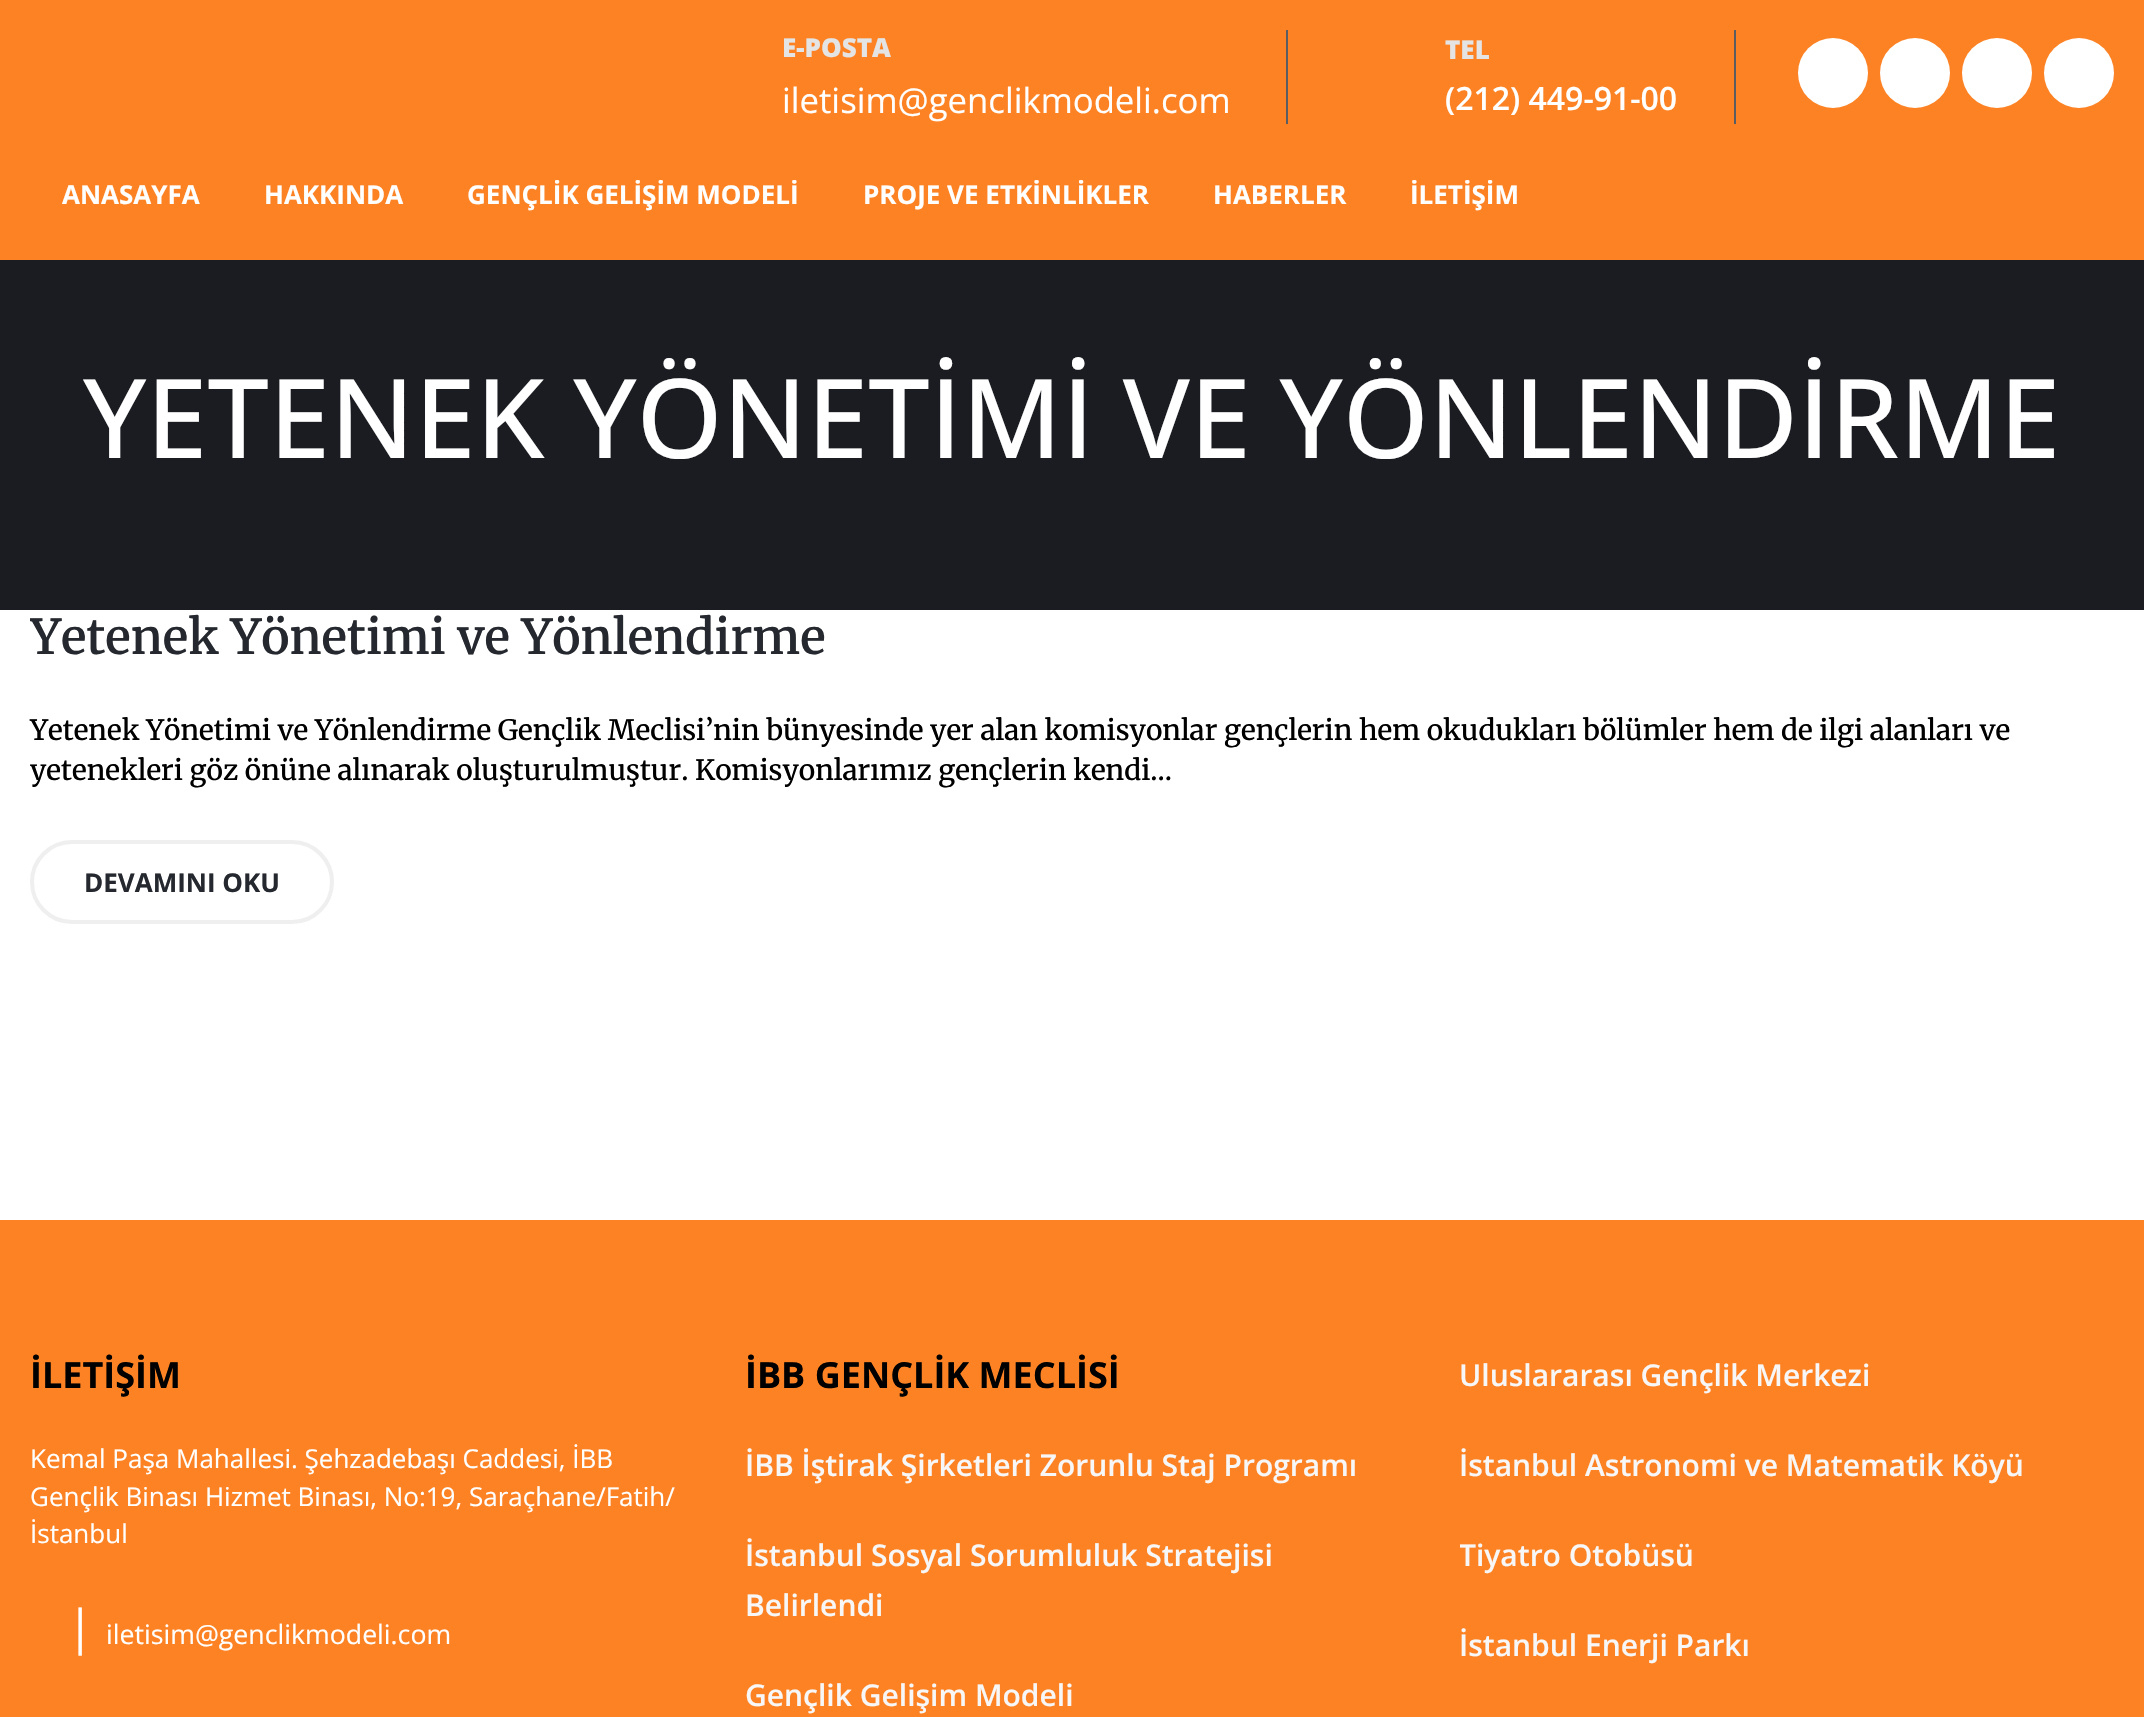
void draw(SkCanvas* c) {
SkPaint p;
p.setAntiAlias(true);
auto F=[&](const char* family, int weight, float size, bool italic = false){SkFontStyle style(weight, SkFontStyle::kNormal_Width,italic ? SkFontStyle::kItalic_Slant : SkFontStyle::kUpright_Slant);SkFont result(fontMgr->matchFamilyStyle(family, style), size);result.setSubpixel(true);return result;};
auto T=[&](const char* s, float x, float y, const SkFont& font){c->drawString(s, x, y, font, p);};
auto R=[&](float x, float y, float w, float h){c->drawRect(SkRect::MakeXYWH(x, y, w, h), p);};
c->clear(0xffffffff);
p.setColor(0xfffd8224);
R(0,0,2144,260);
p.setColor(0xff5a5e63);
R(1286,30,2,94);
auto f1 = F("Open Sans",800,26);
p.setColor(0xffe4e4e4);
T("E-POSTA",782,57,f1);
auto f2 = F("Open Sans",400,34.7);
p.setColor(0xffffffff);
T("iletisim@genclikmodeli.com",782,113,f2);
p.setColor(0xff5a5e63);
R(1734,30,2,94);
p.setColor(0xffe4e4e4);
T("TEL",1445,59,f1);
auto f3 = F("Open Sans",600,32);
p.setColor(0xffffffff);
T("(212) 449-91-00",1445,110,f3);
c->drawCircle(1833,73,35,p);
c->drawCircle(1915,73,35,p);
c->drawCircle(1997,73,35,p);
c->drawCircle(2079,73,35,p);
auto f4 = F("Open Sans",700,26);
T("ANASAYFA",62,204,f4);
T("HAKKINDA",264,204,f4);
T("GENÇLİK GELİŞİM MODELİ",467,204,f4);
T("PROJE VE ETKİNLİKLER",863,204,f4);
T("HABERLER",1213,204,f4);
T("İLETİŞİM",1410,204,f4);
p.setColor(0xff1a1c21);
R(0,260,2144,350);
auto f5 = F("Open Sans",500,110);
p.setColor(0xffffffff);
T("YETENEK YÖNETİMİ VE YÖNLENDİRME",83,458,f5);
c->save();
c->clipRect(SkRect::MakeXYWH(30,610,2084,314));
auto f6 = F("Merriweather",600,48);
p.setColor(0xff25292f);
T("Yetenek Yönetimi ve Yönlendirme",30,654,f6);
c->restore();
auto f7 = F("Merriweather",500,28);
p.setColor(0xff000000);
T("Yetenek Yönetimi ve Yönlendirme Gençlik Meclisi’nin bünyesinde yer alan komisyonlar gençlerin hem okudukları bölümler hem de ilgi alanları ve",30,740,f7);
T("yetenekleri göz önüne alınarak oluşturulmuştur. Komisyonlarımız gençlerin kendi...",30,780,f7);
p.setStroke(true);
p.setStrokeWidth(4);
p.setColor(0xffefefef);
c->drawRoundRect(SkRect::MakeXYWH(32,842,300,80),40,40,p);
p.setStroke(false);
p.setColor(0xff25292f);
T("DEVAMINI OKU",84,892,f4);
p.setColor(0xfffd8224);
R(0,1220,2144,497);
auto f8 = F("Open Sans",700,36);
p.setColor(0xff000000);
T("İLETİŞİM",30,1388,f8);
auto f9 = F("Open Sans",400,26);
p.setColor(0xffffffff);
T("Kemal Paşa Mahallesi. Şehzadebaşı Caddesi, İBB",30,1468,f9);
T("Gençlik Binası Hizmet Binası, No:19, Saraçhane/Fatih/",30,1506,f9);
T("İstanbul",30,1543,f9);
auto f10 = F("Open Sans",400,48);
T("|",67,1644,f10);
auto f11 = F("Open Sans",400,26.7);
T("iletisim@genclikmodeli.com",106,1644,f11);
p.setColor(0xff000000);
T("İBB GENÇLİK MECLİSİ",745,1388,f8);
auto f12 = F("Open Sans",600,30);
p.setColor(0xfff7f7f7);
T("İBB İştirak Şirketleri Zorunlu Staj Programı",745,1476,f12);
T("İstanbul Sosyal Sorumluluk Stratejisi",745,1566,f12);
T("Belirlendi",745,1616,f12);
T("Gençlik Gelişim Modeli",745,1706,f12);
T("Uluslararası Gençlik Merkezi",1459,1386,f12);
T("İstanbul Astronomi ve Matematik Köyü",1459,1476,f12);
c->save();
c->clipRect(SkRect::MakeXYWH(1460,1530,654,50));
T("Tiyatro Otobüsü",1459,1566,f12);
c->restore();
T("İstanbul Enerji Parkı",1459,1656,f12);
}
